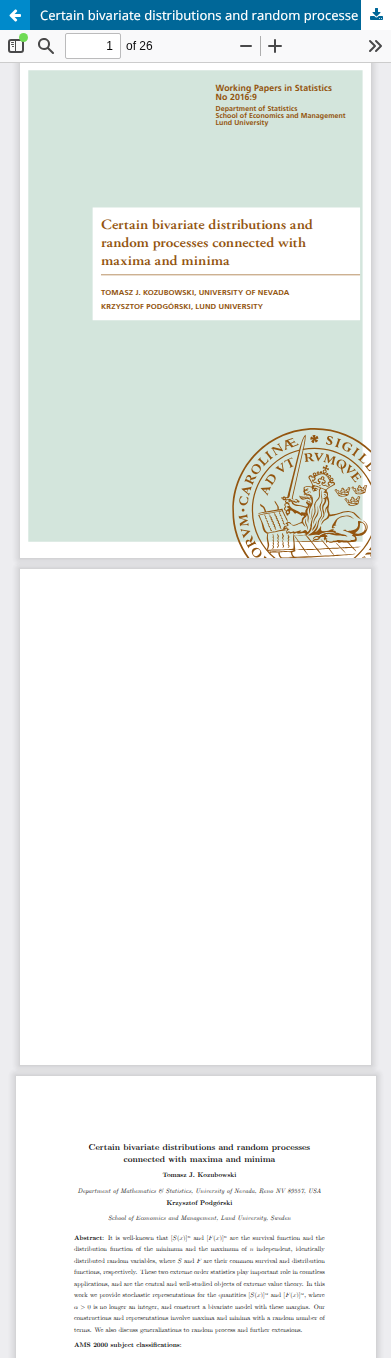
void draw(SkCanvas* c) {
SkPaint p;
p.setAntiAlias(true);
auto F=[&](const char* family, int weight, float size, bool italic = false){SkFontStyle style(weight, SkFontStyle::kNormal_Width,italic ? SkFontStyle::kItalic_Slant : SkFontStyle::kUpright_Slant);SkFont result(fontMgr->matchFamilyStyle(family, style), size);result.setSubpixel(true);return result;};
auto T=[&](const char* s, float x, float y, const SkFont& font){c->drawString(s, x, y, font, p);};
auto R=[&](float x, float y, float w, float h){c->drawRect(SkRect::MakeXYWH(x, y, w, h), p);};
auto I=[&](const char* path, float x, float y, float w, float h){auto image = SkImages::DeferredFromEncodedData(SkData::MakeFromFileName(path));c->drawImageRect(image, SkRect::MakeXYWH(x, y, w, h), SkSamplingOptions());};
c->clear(0xffffffff);
p.setColor(0xff006798);
R(30,0,331,30);
p.setColor(0xff008acb);
R(0,0,30,30);
I("1.png",9,9,12,13);
auto f1 = F("Noto Sans",400,13);
p.setColor(0xffffffff);
T("Certain bivariate distributions and random processe",40,20,f1);
I("2.png",370,8,13,12);
I("3.png",0,30,391,1328);
}
